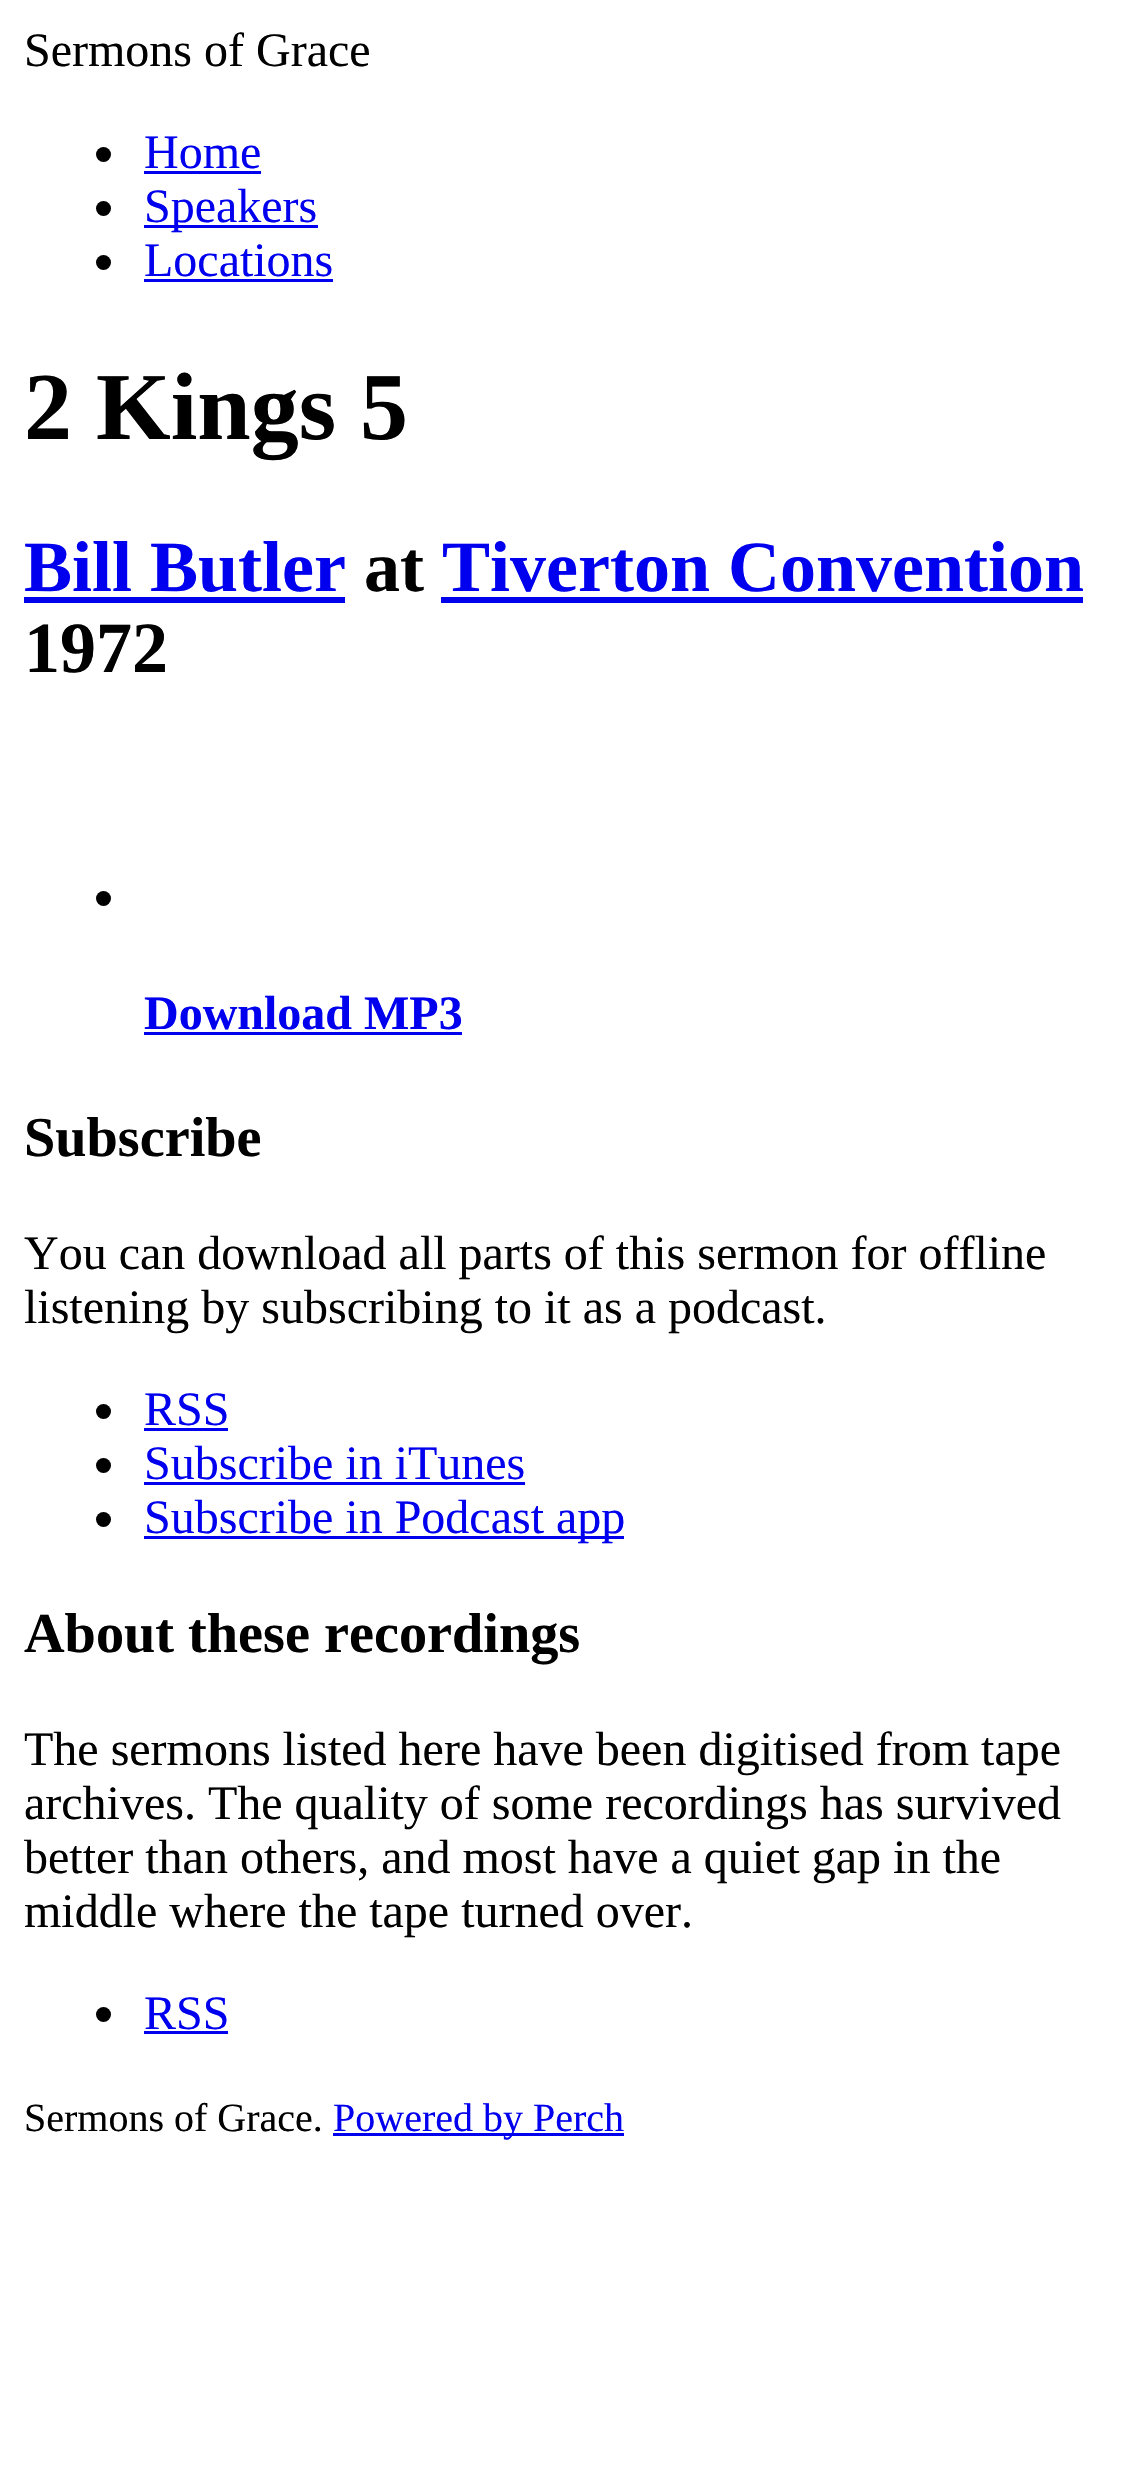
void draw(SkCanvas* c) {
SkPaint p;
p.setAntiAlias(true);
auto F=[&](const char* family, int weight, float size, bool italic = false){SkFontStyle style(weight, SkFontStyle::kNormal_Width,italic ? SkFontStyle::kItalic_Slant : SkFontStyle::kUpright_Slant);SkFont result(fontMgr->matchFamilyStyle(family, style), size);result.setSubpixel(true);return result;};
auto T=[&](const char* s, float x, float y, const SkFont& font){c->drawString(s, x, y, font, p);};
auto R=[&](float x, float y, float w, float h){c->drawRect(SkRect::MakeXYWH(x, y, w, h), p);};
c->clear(0xffffffff);
auto f1 = F("Liberation Serif",400,48);
p.setColor(0xff000000);
T("Sermons of Grace",24,66,f1);
c->drawCircle(103.5,154.5,7.5,p);
p.setColor(0xff0000ee);
T("Home",144,168,f1);
R(144,171,117,3);
p.setColor(0xff000000);
c->drawCircle(103.5,208.5,7.5,p);
p.setColor(0xff0000ee);
R(144,225,174,3);
T("Speakers",144,222,f1);
p.setColor(0xff000000);
c->drawCircle(103.5,262.5,7.5,p);
p.setColor(0xff0000ee);
T("Locations",144,276,f1);
R(144,279,189,3);
auto f2 = F("Liberation Serif",700,96);
p.setColor(0xff000000);
T("2 Kings 5",24,439,f2);
auto f3 = F("Liberation Serif",700,72);
p.setColor(0xff0000ee);
T("Bill Butler",24,591,f3);
R(24,597,321,6);
p.setColor(0xff000000);
T("at",364,591,f3);
p.setColor(0xff0000ee);
T("Tiverton Convention",442,591,f3);
R(441,597,642,6);
p.setColor(0xff000000);
T("1972",24,672,f3);
c->drawCircle(103.5,898.5,7.5,p);
auto f4 = F("Liberation Serif",700,48);
p.setColor(0xff0000ee);
T("Download MP3",144,1029,f4);
R(144,1032,318,3);
auto f5 = F("Liberation Serif",700,56.25);
p.setColor(0xff000000);
T("Subscribe",24,1156,f5);
T("You can download all parts of this sermon for offline",24,1269,f1);
T("listening by subscribing to it as a podcast.",24,1323,f1);
c->drawCircle(103.5,1411.5,7.5,p);
p.setColor(0xff0000ee);
T("RSS",144,1425,f1);
R(144,1428,84,3);
p.setColor(0xff000000);
c->drawCircle(103.5,1465.5,7.5,p);
p.setColor(0xff0000ee);
T("Subscribe in iTunes",144,1479,f1);
R(144,1482,381,3);
p.setColor(0xff000000);
c->drawCircle(103.5,1519.5,7.5,p);
p.setColor(0xff0000ee);
R(144,1536,480,3);
T("Subscribe in Podcast app",144,1533,f1);
p.setColor(0xff000000);
T("About these recordings",24,1652,f5);
T("The sermons listed here have been digitised from tape",24,1765,f1);
T("archives. The quality of some recordings has survived",24,1819,f1);
T("better than others, and most have a quiet gap in the",24,1873,f1);
T("middle where the tape turned over.",24,1927,f1);
c->drawCircle(103.5,2014.5,7.5,p);
p.setColor(0xff0000ee);
T("RSS",144,2029,f1);
R(144,2031,84,3);
auto f6 = F("Liberation Serif",400,40);
p.setColor(0xff000000);
T("Sermons of Grace.",24,2131,f6);
p.setColor(0xff0000ee);
R(333,2133,291,3);
T("Powered by Perch",333,2131,f6);
}
